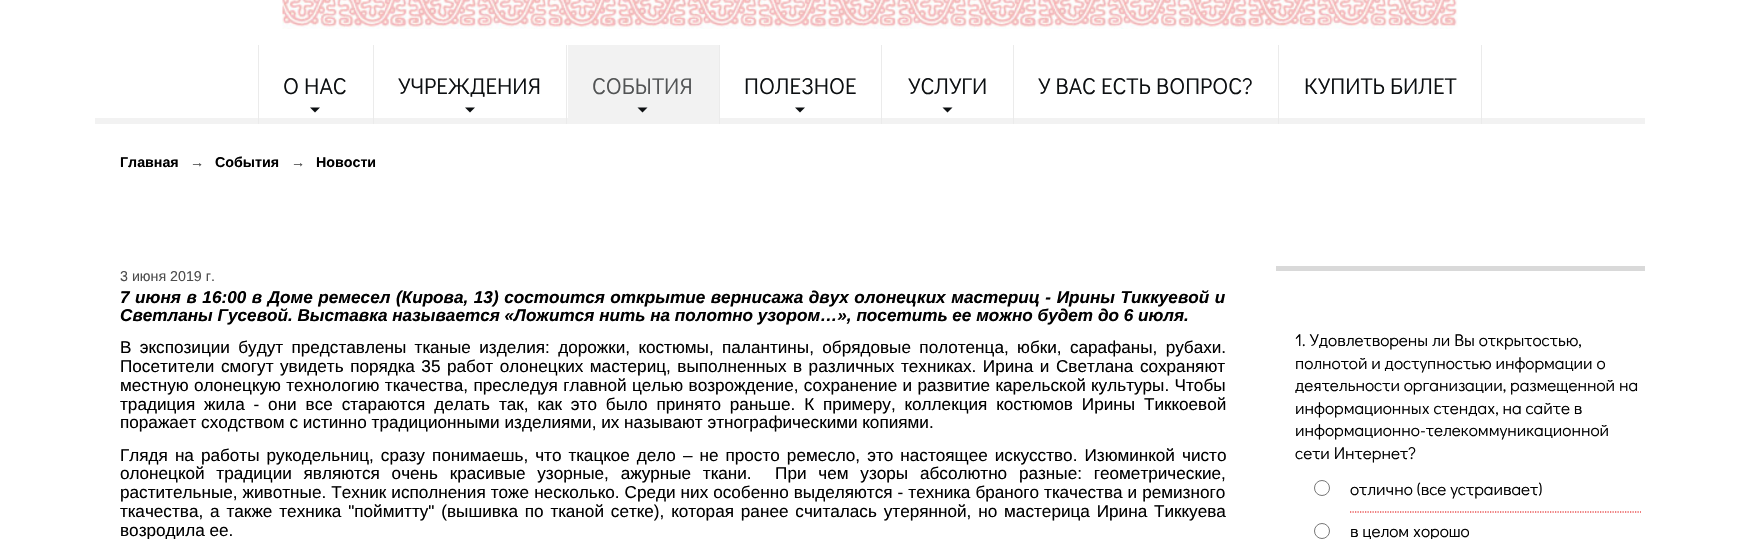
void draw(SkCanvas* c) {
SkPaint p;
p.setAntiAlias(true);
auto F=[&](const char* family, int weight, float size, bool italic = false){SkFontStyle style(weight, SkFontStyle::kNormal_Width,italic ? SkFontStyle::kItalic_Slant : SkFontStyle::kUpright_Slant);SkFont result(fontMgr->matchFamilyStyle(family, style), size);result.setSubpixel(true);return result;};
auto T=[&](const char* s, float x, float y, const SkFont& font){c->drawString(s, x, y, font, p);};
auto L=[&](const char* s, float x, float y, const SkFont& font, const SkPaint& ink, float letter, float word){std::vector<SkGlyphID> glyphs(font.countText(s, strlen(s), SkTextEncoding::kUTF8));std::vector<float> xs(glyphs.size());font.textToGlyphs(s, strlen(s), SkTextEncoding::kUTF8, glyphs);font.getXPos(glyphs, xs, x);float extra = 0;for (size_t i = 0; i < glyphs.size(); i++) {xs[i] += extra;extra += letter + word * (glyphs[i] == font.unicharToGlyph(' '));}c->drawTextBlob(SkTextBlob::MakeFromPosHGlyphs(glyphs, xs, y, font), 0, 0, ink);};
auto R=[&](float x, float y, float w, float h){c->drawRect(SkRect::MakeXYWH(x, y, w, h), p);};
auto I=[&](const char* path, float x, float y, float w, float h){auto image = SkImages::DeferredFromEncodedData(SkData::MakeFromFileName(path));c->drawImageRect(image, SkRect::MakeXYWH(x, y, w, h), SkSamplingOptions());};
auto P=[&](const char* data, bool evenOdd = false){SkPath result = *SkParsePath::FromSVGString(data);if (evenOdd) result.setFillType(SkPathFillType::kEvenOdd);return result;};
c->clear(0xffffffff);
I("1.png",282,0,1176,29);
p.setColor(0xfff2f2f2);
R(95,118,1550,6);
p.setColor(0xffebebeb);
R(373,45,1,79);
R(258,45,1,79);
auto f1 = F("Didact Gothic",400,22.9);
p.setColor(0xff0d1012);
T("О НАС",283,94,f1);
c->drawPath(P("M310 107.5h10l-5 5z"),p);
p.setColor(0xffebebeb);
R(566,45,1,79);
p.setColor(0xff0d1012);
T("УЧРЕЖДЕНИЯ",398,94,f1);
c->drawPath(P("M465 107.5h10l-5 5z"),p);
p.setColor(0xffebebeb);
R(719,45,1,79);
p.setColor(0xfff2f2f2);
R(568,45,151,73);
p.setColor(0xff525455);
T("СОБЫТИЯ",592,94,f1);
p.setColor(0xff0d1012);
c->drawPath(P("M637.5 107.5h10l-5 5z"),p);
p.setColor(0xffebebeb);
R(881,45,1,79);
p.setColor(0xff0d1012);
T("ПОЛЕЗНОЕ",744,94,f1);
c->drawPath(P("M795 107.5h10l-5 5z"),p);
p.setColor(0xffebebeb);
R(1013,45,1,79);
p.setColor(0xff0d1012);
T("УСЛУГИ",908,94,f1);
c->drawPath(P("M942.5 107.5h10l-5 5z"),p);
p.setColor(0xffebebeb);
R(1278,45,1,79);
p.setColor(0xff0d1012);
T("У ВАС ЕСТЬ ВОПРОС?",1038,94,f1);
p.setColor(0xffebebeb);
R(1481,45,1,79);
p.setColor(0xff0d1012);
T("КУПИТЬ БИЛЕТ",1304,94,f1);
auto f2 = F("Liberation Sans",700,14.25);
p.setColor(0xff000000);
T("Главная",120,167,f2);
auto f3 = F("Liberation Sans",400,14.25,true);
p.setColor(0xff4d4d4d);
T("→",190,167,f3);
p.setColor(0xff000000);
T("События",215,167,f2);
p.setColor(0xff4d4d4d);
T("→",291,167,f3);
p.setColor(0xff000000);
T("Новости",316,167,f2);
auto f4 = F("Liberation Sans",400,14.25);
p.setColor(0xff4d4d4d);
T("3 июня 2019 г.",120,281,f4);
auto f5 = F("Liberation Sans",700,17.15,true);
p.setColor(0xff000000);
L("7 июня в 16:00 в Доме ремесел (Кирова, 13) состоится открытие вернисажа двух олонецких мастериц - Ирины Тиккуевой и",120,303,f5,p,0,.8);
T("Светланы Гусевой. Выставка называется «Ложится нить на полотно узором…», посетить ее можно будет до 6 июля.",120,321,f5);
auto f6 = F("Liberation Sans",400,17.15);
L("В экспозиции будут представлены тканые изделия: дорожки, костюмы, палантины, обрядовые полотенца, юбки, сарафаны, рубахи.",120,353,f6,p,0,3.6);
L("Посетители смогут увидеть порядка 35 работ олонецких мастериц, выполненных в различных техниках. Ирина и Светлана сохраняют",120,372,f6,p,0,1.75);
L("местную олонецкую технологию ткачества, преследуя главной целью возрождение, сохранение и развитие карельской культуры. Чтобы",120,391,f6,p,0,.6);
L("традиция жила - они все стараются делать так, как это было принято раньше. К примеру, коллекция костюмов Ирины Тиккоевой",120,410,f6,p,0,4.1);
T("поражает сходством с истинно традиционными изделиями, их называют этнографическими копиями.",120,428,f6);
L("Глядя на работы рукодельниц, сразу понимаешь, что ткацкое дело – не просто ремесло, это настоящее искусство. Изюминкой чисто",120,461,f6,p,0,2.25);
L("олонецкой традиции являются очень красивые узорные, ажурные ткани.  При чем узоры абсолютно разные: геометрические,",120,479,f6,p,0,7);
L("растительные, животные. Техник исполнения тоже несколько. Среди них особенно выделяются - техника браного ткачества и ремизного",120,498,f6,p,0,.25);
L("ткачества, а также техника \"поймитту\" (вышивка по тканой сетке), которая ранее считалась утерянной, но мастерица Ирина Тиккуева",120,517,f6,p,0,2.1);
T("возродила ее.",120,536,f6);
p.setColor(0xffd9d9d9);
R(1276,266,369,5);
auto f7 = F("Didact Gothic",400,17.15);
p.setColor(0xff000000);
T("1. Удовлетворены ли Вы открытостью,",1295,346,f7);
T("полнотой и доступностью информации о",1295,369,f7);
T("деятельности организации, размещенной на",1295,391,f7);
T("информационных стендах, на сайте в",1295,414,f7);
T("информационно-телекоммуникационной",1295,436,f7);
T("сети Интернет?",1295,459,f7);
p.setStroke(true);
p.setStrokeWidth(1);
p.setColor(0xff767676);
c->drawCircle(1322,488,7.5,p);
p.setStrokeWidth(1.2);
p.setColor(0xffe00000);
p.setPathEffect(SkDashPathEffect::Make({{1.25f,1.25f}}, 0));
c->drawPath(P("M1350 512h291"),p);
p.setPathEffect(nullptr);
p.setStroke(false);
p.setColor(0xff000000);
T("отлично (все устраивает)",1350,495,f7);
p.setStroke(true);
p.setStrokeWidth(1);
p.setColor(0xff767676);
c->drawCircle(1322,531,7.5,p);
p.setStroke(false);
p.setColor(0xff000000);
T("в целом хорошо",1350,537,f7);
}
